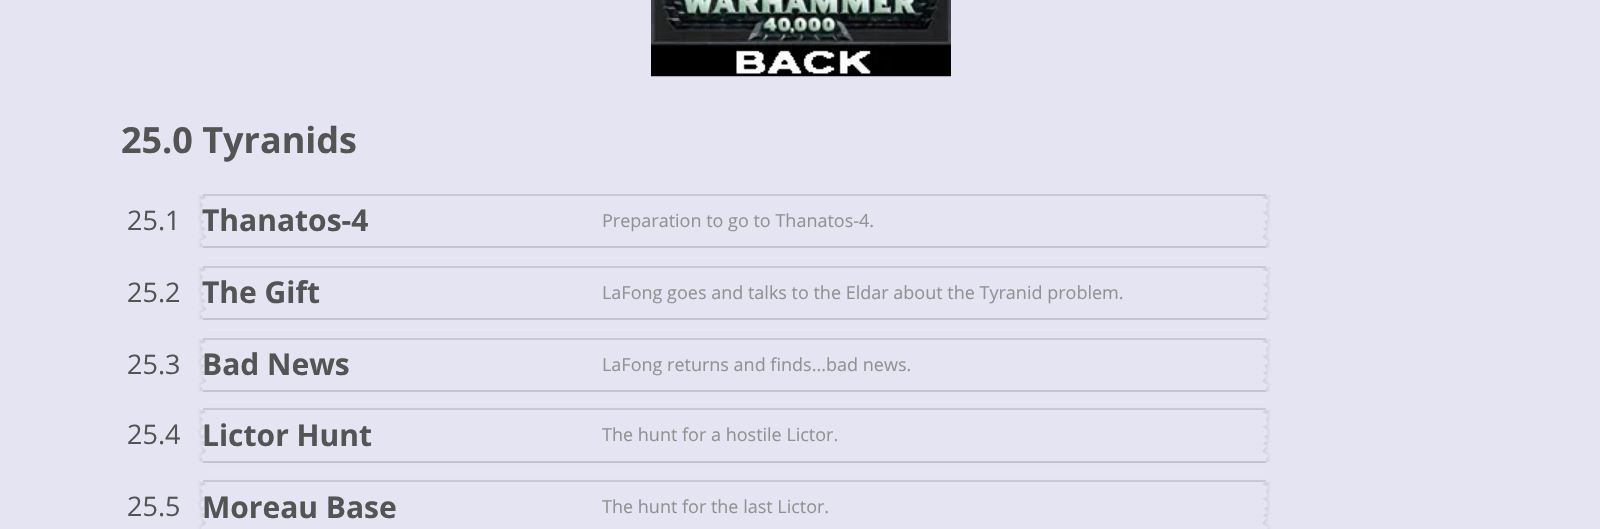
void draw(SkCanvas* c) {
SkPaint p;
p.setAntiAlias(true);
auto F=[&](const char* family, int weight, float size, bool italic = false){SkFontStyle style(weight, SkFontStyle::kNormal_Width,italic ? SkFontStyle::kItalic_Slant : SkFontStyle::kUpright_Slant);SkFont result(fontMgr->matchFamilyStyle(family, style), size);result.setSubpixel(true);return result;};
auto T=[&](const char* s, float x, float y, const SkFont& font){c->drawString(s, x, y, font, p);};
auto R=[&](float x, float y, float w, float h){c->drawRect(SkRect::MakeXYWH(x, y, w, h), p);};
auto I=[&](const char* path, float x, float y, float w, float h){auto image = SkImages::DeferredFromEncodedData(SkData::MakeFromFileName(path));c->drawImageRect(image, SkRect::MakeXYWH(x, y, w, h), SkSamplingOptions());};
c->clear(0xffe4e4f3);
I("1.png",651,0,300,77);
auto f1 = F("Open Sans",700,36);
p.setColor(0xff545454);
T("25.0 Tyranids",121,153,f1);
auto f2 = F("Open Sans",400,27);
T("25.1",127,230,f2);
p.setColor(0xffe7e7f4);
R(204,194,1061,2);
I("2.png",198,194,9,54);
p.setColor(0x21000000);
R(203,194,1063,2);
p.setColor(0xffc4c4d1);
R(203,246,1063,2);
I("3.png",1262,194,9,54);
auto f3 = F("Open Sans",700,30);
p.setColor(0xff545454);
T("Thanatos-4",202,231,f3);
p.setColor(0xffe7e7f4);
R(204,257,1061,2);
auto f4 = F("Open Sans",400,18);
p.setColor(0xff929292);
T("Preparation to go to Thanatos-4.",602,227,f4);
p.setColor(0xff545454);
T("25.2",127,302,f2);
p.setColor(0xffe7e7f4);
R(204,266,1061,2);
I("2.png",198,266,9,54);
p.setColor(0x21000000);
R(203,266,1063,2);
p.setColor(0xffc4c4d1);
R(203,318,1063,2);
I("3.png",1262,266,9,54);
p.setColor(0xff545454);
T("The Gift",202,303,f3);
p.setColor(0xffe7e7f4);
R(204,329,1061,2);
p.setColor(0xff929292);
T("LaFong goes and talks to the Eldar about the Tyranid problem.",602,299,f4);
p.setColor(0xff545454);
T("25.3",127,374,f2);
p.setColor(0xffe7e7f4);
R(204,338,1061,2);
I("2.png",198,338,9,54);
p.setColor(0x21000000);
R(203,338,1063,2);
p.setColor(0xffc4c4d1);
R(203,390,1063,2);
I("3.png",1262,338,9,54);
p.setColor(0xff545454);
T("Bad News",202,375,f3);
p.setColor(0xffe7e7f4);
R(204,401,1061,2);
p.setColor(0xff929292);
T("LaFong returns and finds...bad news.",602,371,f4);
p.setColor(0xff545454);
T("25.4",127,444,f2);
p.setColor(0xffe7e7f4);
R(204,408,1061,2);
I("4.png",198,408,8,54);
p.setColor(0x21000000);
R(203,408,1063,2);
p.setColor(0xffc5c5d2);
R(203,461,1063,2);
I("5.png",1262,408,9,54);
p.setColor(0xff545454);
T("Lictor Hunt",202,446,f3);
p.setColor(0xffe7e7f4);
R(204,471,1061,2);
p.setColor(0xff929292);
T("The hunt for a hostile Lictor.",602,441,f4);
p.setColor(0xff545454);
T("25.5",127,516,f2);
p.setColor(0xffe7e7f4);
R(204,480,1061,2);
I("6.png",198,480,8,49);
p.setColor(0x21000000);
R(203,480,1063,2);
I("7.png",1262,480,9,49);
p.setColor(0xff545454);
T("Moreau Base",202,518,f3);
p.setColor(0xff929292);
T("The hunt for the last Lictor.",602,513,f4);
}
